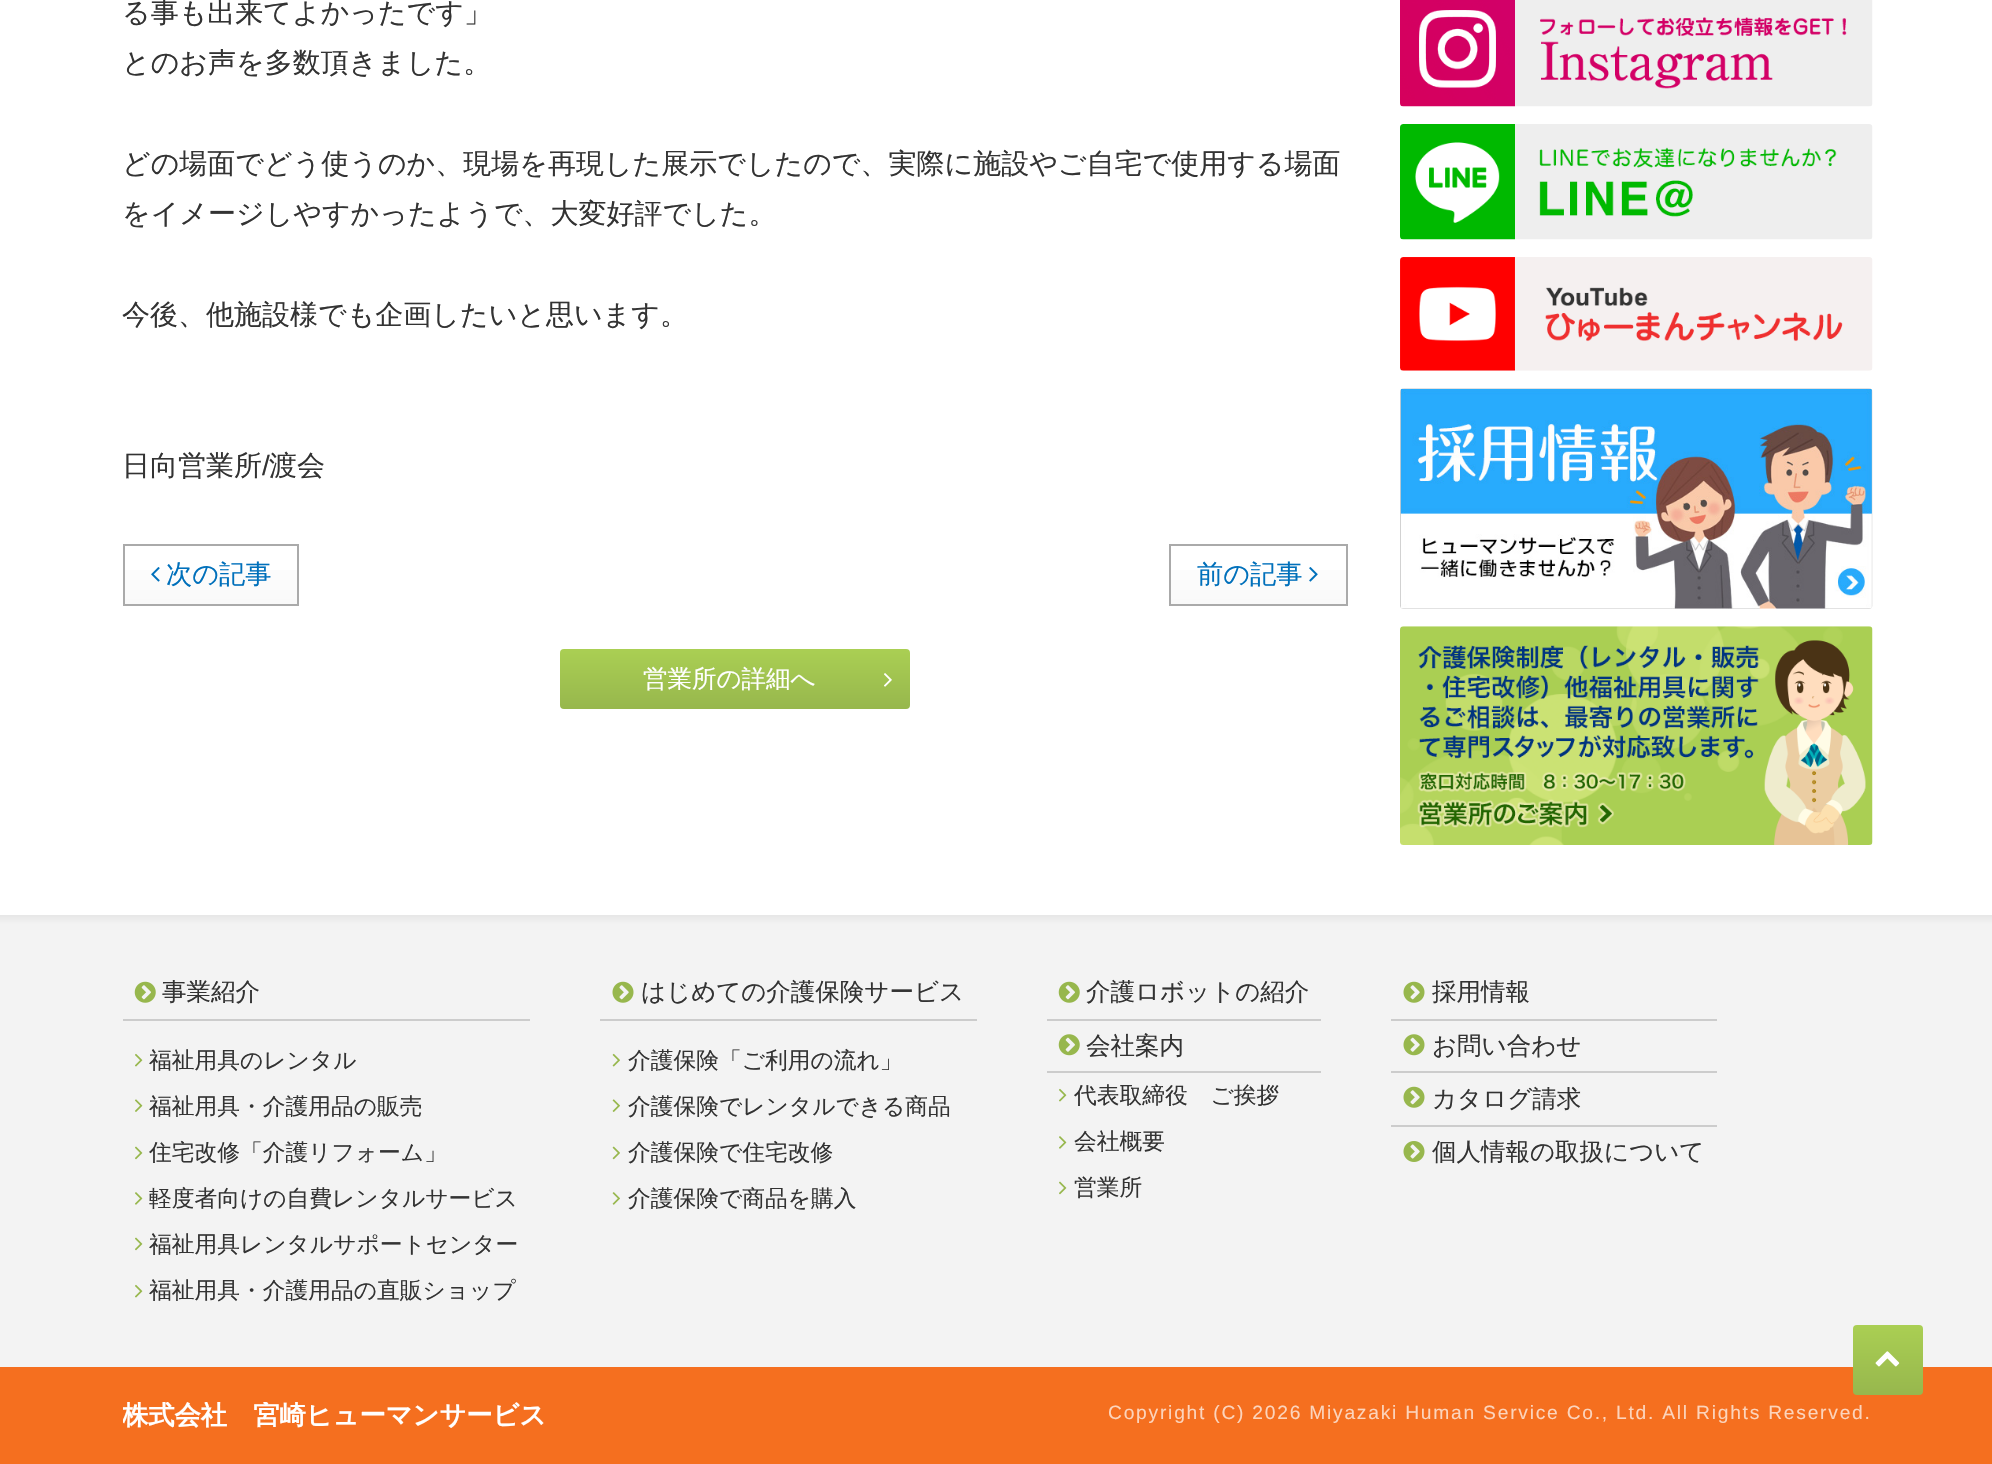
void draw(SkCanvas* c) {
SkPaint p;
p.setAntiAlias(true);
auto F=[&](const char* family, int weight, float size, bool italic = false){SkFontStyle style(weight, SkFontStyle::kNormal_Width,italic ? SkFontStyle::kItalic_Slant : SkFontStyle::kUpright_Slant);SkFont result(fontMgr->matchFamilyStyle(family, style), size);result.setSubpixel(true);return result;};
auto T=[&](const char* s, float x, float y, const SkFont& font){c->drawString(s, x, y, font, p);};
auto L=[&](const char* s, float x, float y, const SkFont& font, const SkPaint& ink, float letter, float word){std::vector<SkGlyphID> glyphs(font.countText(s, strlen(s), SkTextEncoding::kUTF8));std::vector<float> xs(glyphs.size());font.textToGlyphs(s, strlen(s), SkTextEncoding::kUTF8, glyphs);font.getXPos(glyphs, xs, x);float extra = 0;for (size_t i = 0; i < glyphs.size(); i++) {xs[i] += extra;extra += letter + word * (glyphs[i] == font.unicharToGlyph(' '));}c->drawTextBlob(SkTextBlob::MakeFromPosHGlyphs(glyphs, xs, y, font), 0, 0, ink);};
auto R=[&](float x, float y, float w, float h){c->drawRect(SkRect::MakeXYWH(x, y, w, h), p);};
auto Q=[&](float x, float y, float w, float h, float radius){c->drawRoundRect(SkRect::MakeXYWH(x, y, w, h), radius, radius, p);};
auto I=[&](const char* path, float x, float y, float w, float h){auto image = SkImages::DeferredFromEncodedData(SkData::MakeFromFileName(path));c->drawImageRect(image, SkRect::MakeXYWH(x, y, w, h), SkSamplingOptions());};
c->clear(0xffffffff);
auto f1 = F("WenQuanYi Zen Hei",500,28);
p.setColor(0xff333333);
T("る事も出来てよかったです」",122,22,f1);
T("とのお声を多数頂きました。",122,72,f1);
T("どの場面でどう使うのか、現場を再現した展示でしたので、実際に施設やご自宅で使用する場面",122,173,f1);
T("をイメージしやすかったようで、大変好評でした。",122,223,f1);
T("今後、他施設様でも企画したいと思います。",122,324,f1);
T("日向営業所",122,475,f1);
auto f2 = F("Liberation Sans",400,28);
T("/",262,475,f2);
T("渡会",269,475,f1);
{
const SkColor colors[] = {0xffffffff,0xfff9f9f9};
const float stops[] = {0,1};
const SkPoint ends[] = {{211,546}, {211,604}};
p.setShader(SkGradientShader::MakeLinear(ends, colors, stops, 2, SkTileMode::kClamp));
p.setAlpha(255);
}
R(125,570,172,34);
p.setStroke(true);
p.setStrokeWidth(2);
p.setShader(nullptr);
p.setColor(0xffaaaaaa);
c->drawRect(SkRect::MakeXYWH(124,545,174,60),p);
I("1.png",151,567,9,15);
auto f3 = F("WenQuanYi Zen Hei",500,26.25);
p.setStroke(false);
p.setColor(0xff0070bb);
T("次の記事",166,583,f3);
{
const SkColor colors[] = {0xffffffff,0xfff9f9f9};
const float stops[] = {0,1};
const SkPoint ends[] = {{1258,546}, {1258,604}};
p.setShader(SkGradientShader::MakeLinear(ends, colors, stops, 2, SkTileMode::kClamp));
p.setAlpha(255);
}
R(1171,570,175,34);
p.setStroke(true);
p.setShader(nullptr);
p.setColor(0xffaaaaaa);
c->drawRect(SkRect::MakeXYWH(1170,545,177,60),p);
p.setStroke(false);
p.setColor(0xff0070bb);
T("前の記事",1197,583,f3);
I("2.png",1309,567,9,15);
{
const SkColor colors[] = {0xffaacf53,0xff97b74d};
const float stops[] = {0,1};
const SkPoint ends[] = {{735,649}, {735,709}};
p.setShader(SkGradientShader::MakeLinear(ends, colors, stops, 2, SkTileMode::kClamp));
p.setAlpha(255);
}
Q(560,649,350,60,4);
auto f4 = F("WenQuanYi Zen Hei",500,24.5);
p.setShader(nullptr);
p.setColor(0xffffffff);
T("営業所の詳細へ",643,687,f4);
I("3.png",884,673,8,14);
I("4.png",1400,0,473,107);
I("5.png",1400,124,473,116);
I("6.png",1400,257,473,114);
I("7.png",1400,388,473,221);
I("8.png",1400,626,473,219);
{
const SkColor colors[] = {0xffe6e6e6,0xfff3f3f3};
const float stops[] = {0,.02};
const SkPoint ends[] = {{997,915}, {997,1367}};
p.setShader(SkGradientShader::MakeLinear(ends, colors, stops, 2, SkTileMode::kClamp));
p.setAlpha(255);
}
R(0,915,1992,452);
p.setShader(nullptr);
p.setColor(0xffcccccc);
R(123,1019,407,2);
I("9.png",134,981,22,22);
p.setColor(0xff333333);
T("事業紹介",162,1000,f4);
I("10.png",135,1053,8,14);
auto f5 = F("WenQuanYi Zen Hei",500,22.75);
T("福祉用具のレンタル",149,1068,f5);
I("11.png",135,1099,8,13);
T("福祉用具・介護用品の販売",149,1114,f5);
I("12.png",135,1146,8,14);
T("住宅改修「介護リフォーム」",149,1160,f5);
I("13.png",135,1192,8,13);
T("軽度者向けの自費レンタルサービス",149,1206,f5);
I("12.png",135,1237,8,14);
T("福祉用具レンタルサポートセンター",149,1252,f5);
I("10.png",135,1284,8,14);
T("福祉用具・介護用品の直販ショップ",149,1298,f5);
p.setColor(0xffcccccc);
R(600,1019,377,2);
I("14.png",612,981,22,22);
p.setColor(0xff333333);
T("はじめての介護保険サービス",641,1000,f4);
I("15.png",612,1053,8,14);
T("介護保険「ご利用の流れ」",628,1068,f5);
I("16.png",612,1099,8,13);
T("介護保険でレンタルできる商品",628,1114,f5);
I("17.png",612,1146,8,14);
T("介護保険で住宅改修",628,1160,f5);
I("18.png",612,1192,8,13);
T("介護保険で商品を購入",628,1206,f5);
p.setColor(0xffcccccc);
R(1047,1019,274,2);
I("9.png",1058,981,22,22);
p.setColor(0xff333333);
T("介護ロボットの紹介",1086,1000,f4);
p.setColor(0xffcccccc);
R(1047,1071,274,2);
I("19.png",1058,1034,22,22);
p.setColor(0xff333333);
T("会社案内",1086,1054,f4);
I("10.png",1059,1088,8,14);
T("代表取締役　ご挨拶",1074,1103,f5);
I("13.png",1059,1136,8,13);
T("会社概要",1074,1149,f5);
I("12.png",1059,1181,8,14);
T("営業所",1074,1195,f5);
p.setColor(0xffcccccc);
R(1391,1019,326,2);
I("14.png",1403,981,22,22);
p.setColor(0xff333333);
T("採用情報",1432,1000,f4);
p.setColor(0xffcccccc);
R(1391,1071,326,2);
I("20.png",1403,1034,22,22);
p.setColor(0xff333333);
T("お問い合わせ",1432,1054,f4);
p.setColor(0xffcccccc);
R(1391,1125,326,2);
I("14.png",1403,1086,22,22);
p.setColor(0xff333333);
T("カタログ請求",1432,1107,f4);
I("21.png",1403,1141,22,21);
T("個人情報の取扱について",1432,1160,f4);
p.setColor(0xfff56f1f);
R(0,1367,1992,97);
c->save();
c->clipRect(SkRect::MakeXYWH(123,1402,1750,28));
auto f6 = F("WenQuanYi Zen Hei",700,26.25);
p.setColor(0xffffffff);
T("株式会社　宮崎ヒューマンサービス",122,1424,f6);
c->restore();
auto f7 = F("Liberation Sans",400,19.25);
p.setColor(0xfffcd4bc);
L("Copyright (C) 2026 Miyazaki Human Service Co., Ltd. All Rights Reserved.",1108,1419,f7,p,1.75,0);
{
const SkColor colors[] = {0xffaacf53,0xff97b74d};
const float stops[] = {0,1};
const SkPoint ends[] = {{1888,1325}, {1888,1395}};
p.setShader(SkGradientShader::MakeLinear(ends, colors, stops, 2, SkTileMode::kClamp));
p.setAlpha(255);
}
Q(1853,1325,70,70,4);
I("22.png",1875,1351,25,16);
}
